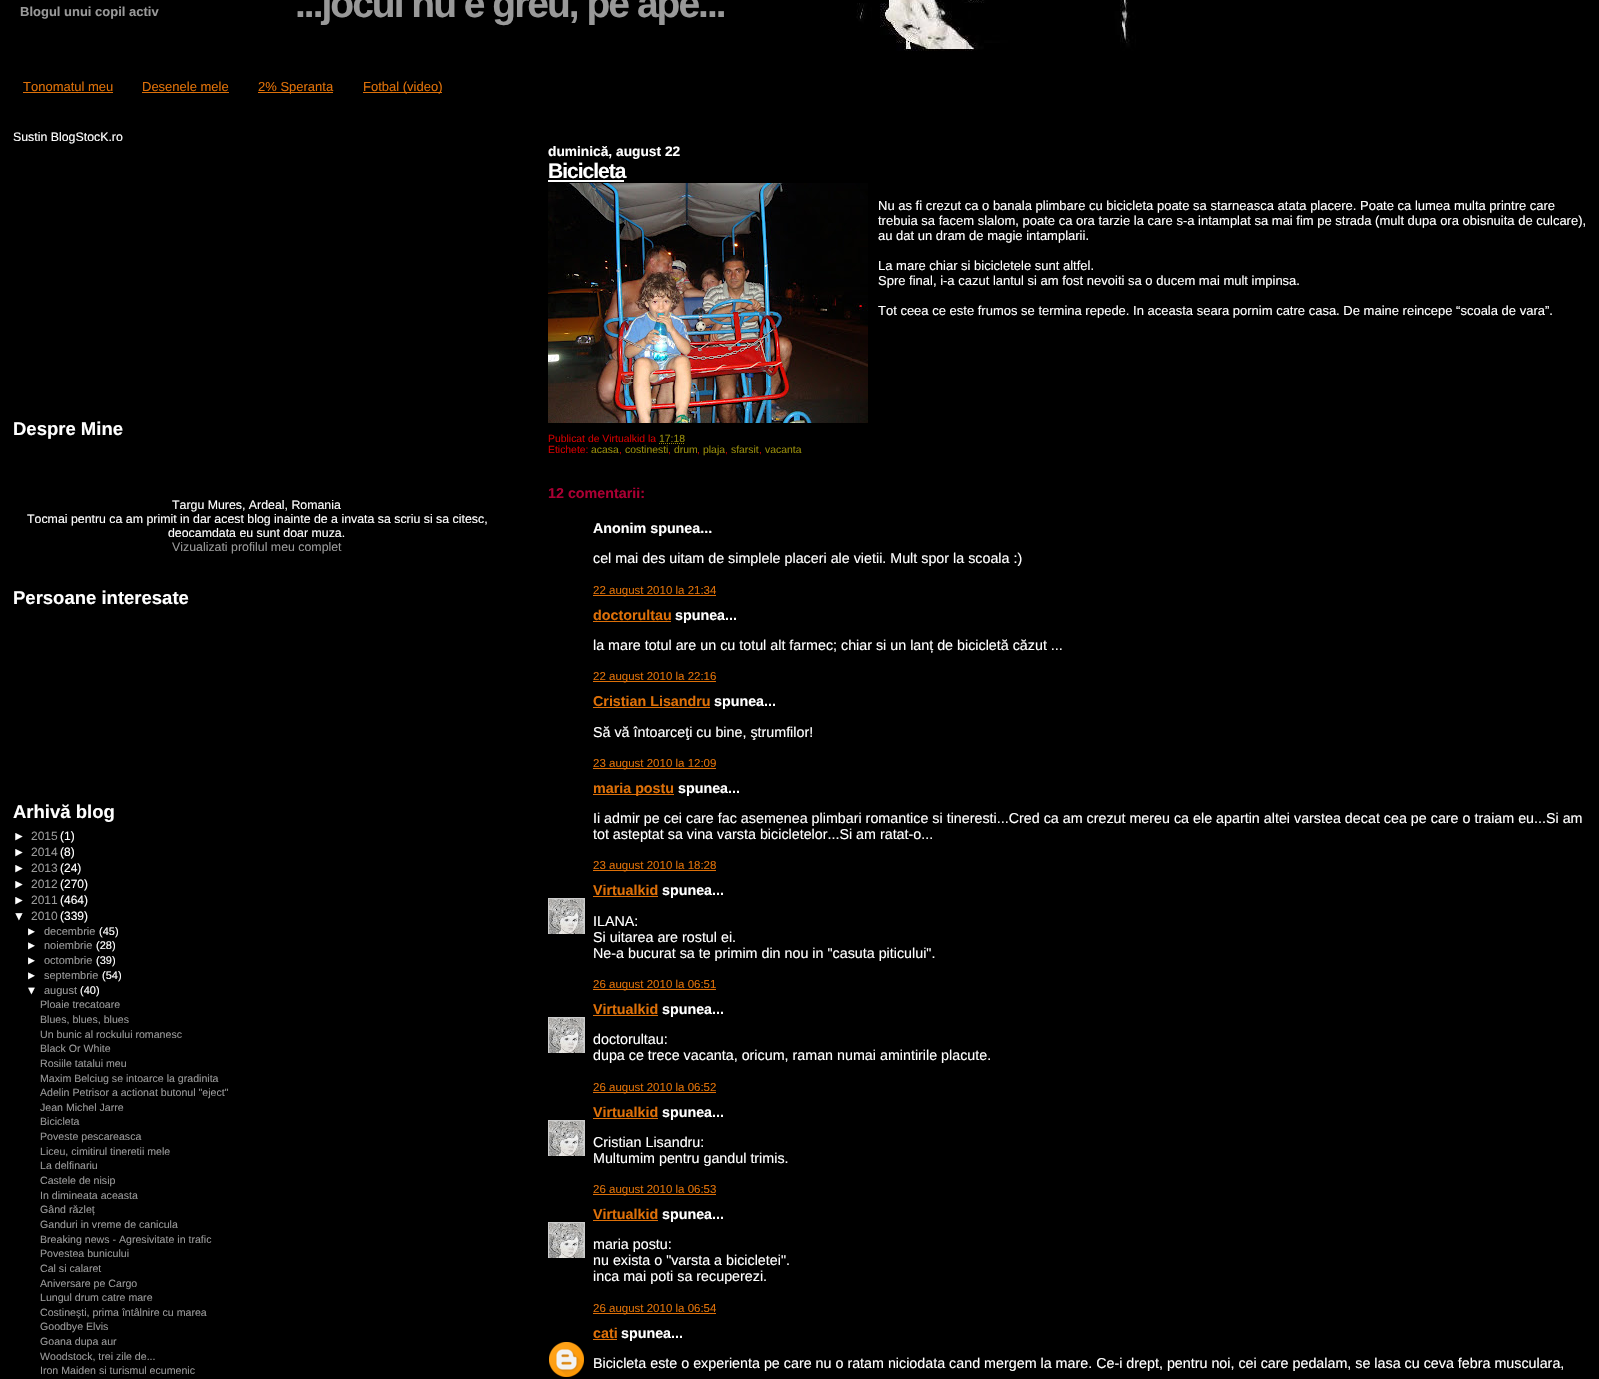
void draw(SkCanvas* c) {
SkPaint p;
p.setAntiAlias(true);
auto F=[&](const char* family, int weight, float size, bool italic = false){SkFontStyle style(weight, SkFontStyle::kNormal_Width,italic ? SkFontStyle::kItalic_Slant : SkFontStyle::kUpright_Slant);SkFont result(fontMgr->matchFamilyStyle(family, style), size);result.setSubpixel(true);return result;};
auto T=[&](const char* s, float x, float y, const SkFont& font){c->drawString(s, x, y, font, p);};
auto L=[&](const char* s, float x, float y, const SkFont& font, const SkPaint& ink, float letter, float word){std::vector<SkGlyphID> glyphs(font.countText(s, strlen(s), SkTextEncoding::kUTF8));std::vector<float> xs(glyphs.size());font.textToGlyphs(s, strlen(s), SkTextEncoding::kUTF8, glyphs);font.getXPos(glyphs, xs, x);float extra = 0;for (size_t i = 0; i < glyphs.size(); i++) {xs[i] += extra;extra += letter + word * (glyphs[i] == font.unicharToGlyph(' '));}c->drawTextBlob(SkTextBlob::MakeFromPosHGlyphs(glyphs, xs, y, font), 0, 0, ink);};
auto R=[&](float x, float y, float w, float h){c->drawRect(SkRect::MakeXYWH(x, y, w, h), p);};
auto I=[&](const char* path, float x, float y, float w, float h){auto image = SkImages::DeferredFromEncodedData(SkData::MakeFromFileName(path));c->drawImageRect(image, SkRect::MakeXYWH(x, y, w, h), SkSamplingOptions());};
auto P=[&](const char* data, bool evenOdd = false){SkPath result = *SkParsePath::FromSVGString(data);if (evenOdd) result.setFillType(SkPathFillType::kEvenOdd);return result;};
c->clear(0xff000000);
I("1.png",856,0,280,51);
auto f1 = F("Liberation Sans",700,13);
p.setColor(0xff999999);
T("Blogul unui copil activ",20,16,f1);
auto f2 = F("Liberation Sans",700,39);
L("...jocul nu e greu, pe ape...",295,17,f2,p,-2,0);
auto f3 = F("Liberation Sans",400,13);
p.setColor(0xffde7008);
T("Tonomatul meu",23,91,f3);
R(23,92,90,1);
T("Desenele mele",142,91,f3);
R(142,92,87,1);
R(258,92,75,1);
T("2% Speranta",258,91,f3);
R(363,92,79,1);
T("Fotbal (video)",363,91,f3);
auto f4 = F("Liberation Sans",400,12.35);
p.setColor(0xffffffff);
T("Sustin BlogStocK.ro",13,141,f4);
auto f5 = F("Liberation Sans",700,18.5);
T("Despre Mine",13,435,f5);
T("Targu Mures, Ardeal, Romania",172,509,f4);
T("Tocmai pentru ca am primit in dar acest blog inainte de a invata sa scriu si sa citesc,",27,523,f4);
T("deocamdata eu sunt doar muza.",168,537,f4);
p.setColor(0xff999999);
T("Vizualizati profilul meu complet",172,551,f4);
p.setColor(0xffffffff);
T("Persoane interesate",13,604,f5);
T("Arhivă blog",13,818,f5);
auto f6 = F("Liberation Sans",400,12);
T("►",13,840,f6);
p.setColor(0xff999999);
T("2015",31,840,f6);
p.setColor(0xffffffff);
T("(1)",60,840,f6);
T("►",13,856,f6);
p.setColor(0xff999999);
T("2014",31,856,f6);
p.setColor(0xffffffff);
T("(8)",60,856,f6);
T("►",13,872,f6);
p.setColor(0xff999999);
T("2013",31,872,f6);
p.setColor(0xffffffff);
T("(24)",60,872,f6);
T("►",13,888,f6);
p.setColor(0xff999999);
T("2012",31,888,f6);
p.setColor(0xffffffff);
T("(270)",60,888,f6);
T("►",13,904,f6);
p.setColor(0xff999999);
T("2011",31,904,f6);
p.setColor(0xffffffff);
T("(464)",60,904,f6);
T("▼",13,920,f6);
p.setColor(0xff999999);
T("2010",31,920,f6);
p.setColor(0xffffffff);
T("(339)",60,920,f6);
auto f7 = F("Liberation Sans",400,11);
T("►",26,935,f7);
p.setColor(0xff999999);
T("decembrie",44,935,f7);
p.setColor(0xffffffff);
T("(45)",99,935,f7);
T("►",26,949,f7);
p.setColor(0xff999999);
T("noiembrie",44,949,f7);
p.setColor(0xffffffff);
T("(28)",96,949,f7);
T("►",26,964,f7);
p.setColor(0xff999999);
T("octombrie",44,964,f7);
p.setColor(0xffffffff);
T("(39)",96,964,f7);
T("►",26,979,f7);
p.setColor(0xff999999);
T("septembrie",44,979,f7);
p.setColor(0xffffffff);
T("(54)",102,979,f7);
T("▼",26,994,f7);
p.setColor(0xff999999);
T("august",44,994,f7);
p.setColor(0xffffffff);
T("(40)",80,994,f7);
auto f8 = F("Liberation Sans",400,10.6);
p.setColor(0xff999999);
T("Ploaie trecatoare",40,1008,f8);
T("Blues, blues, blues",40,1023,f8);
T("Un bunic al rockului romanesc",40,1038,f8);
T("Black Or White",40,1052,f8);
T("Rosiile tatalui meu",40,1067,f8);
T("Maxim Belciug se intoarce la gradinita",40,1082,f8);
T("Adelin Petrisor a actionat butonul \"eject\"",40,1096,f8);
T("Jean Michel Jarre",40,1111,f8);
T("Bicicleta",40,1125,f8);
T("Poveste pescareasca",40,1140,f8);
T("Liceu, cimitirul tineretii mele",40,1155,f8);
T("La delfinariu",40,1169,f8);
T("Castele de nisip",40,1184,f8);
T("In dimineata aceasta",40,1199,f8);
T("Gând răzleț",40,1213,f8);
T("Ganduri in vreme de canicula",40,1228,f8);
T("Breaking news - Agresivitate in trafic",40,1243,f8);
T("Povestea bunicului",40,1257,f8);
T("Cal si calaret",40,1272,f8);
T("Aniversare pe Cargo",40,1287,f8);
T("Lungul drum catre mare",40,1301,f8);
T("Costineşti, prima întâlnire cu marea",40,1316,f8);
T("Goodbye Elvis",40,1330,f8);
T("Goana dupa aur",40,1345,f8);
T("Woodstock, trei zile de...",40,1360,f8);
T("Iron Maiden si turismul ecumenic",40,1374,f8);
auto f9 = F("Liberation Sans",700,13.75);
p.setColor(0xffffffff);
T("duminică, august 22",548,156,f9);
auto f10 = F("Liberation Sans",700,21);
L("Bicicleta",548,178,f10,p,-1,0);
R(548,180,76,2);
I("2.png",548,183,320,240);
T("Nu as fi crezut ca o banala plimbare cu bicicleta poate sa starneasca atata placere. Poate ca lumea multa printre care",878,210,f3);
T("trebuia sa facem slalom, poate ca ora tarzie la care s-a intamplat sa mai fim pe strada (mult dupa ora obisnuita de culcare),",878,225,f3);
T("au dat un dram de magie intamplarii.",878,240,f3);
T("La mare chiar si bicicletele sunt altfel.",878,270,f3);
T("Spre final, i-a cazut lantul si am fost nevoiti sa o ducem mai mult impinsa.",878,285,f3);
T("Tot ceea ce este frumos se termina repede. In aceasta seara pornim catre casa. De maine reincepe “scoala de vara”.",878,315,f3);
auto f11 = F("Liberation Sans",400,10.4);
p.setColor(0xffcc0000);
T("Publicat de Virtualkid la",548,442,f11);
p.setColor(0xff968a0a);
T("17:18",659,442,f11);
p.setStroke(true);
p.setStrokeWidth(1);
p.setPathEffect(SkDashPathEffect::Make({{1,1}}, 0));
c->drawPath(P("M659 443.5h26"),p);
p.setPathEffect(nullptr);
p.setStroke(false);
p.setColor(0xffcc0000);
T("Etichete:",548,453,f11);
p.setColor(0xff968a0a);
T("acasa",591,453,f11);
p.setColor(0xffcc0000);
T(",",619,453,f11);
p.setColor(0xff968a0a);
T("costinesti",625,453,f11);
p.setColor(0xffcc0000);
T(",",668,453,f11);
p.setColor(0xff968a0a);
T("drum",674,453,f11);
p.setColor(0xffcc0000);
T(",",697,453,f11);
p.setColor(0xff968a0a);
T("plaja",703,453,f11);
p.setColor(0xffcc0000);
T(",",725,453,f11);
p.setColor(0xff968a0a);
T("sfarsit",731,453,f11);
p.setColor(0xffcc0000);
T(",",759,453,f11);
p.setColor(0xff968a0a);
T("vacanta",765,453,f11);
auto f12 = F("Liberation Sans",700,14.3);
p.setColor(0xffaa0033);
T("12 comentarii:",548,498,f12);
p.setColor(0xffffffff);
T("Anonim spunea...",593,533,f12);
auto f13 = F("Liberation Sans",400,14.3);
T("cel mai des uitam de simplele placeri ale vietii. Mult spor la scoala :)",593,563,f13);
p.setColor(0xffde7008);
R(593,595,123,1);
auto f14 = F("Liberation Sans",400,11.5);
T("22 august 2010 la 21:34",593,594,f14);
T("doctorultau",593,620,f12);
R(593,621,78,1);
p.setColor(0xffffffff);
T("spunea...",675,620,f12);
T("la mare totul are un cu totul alt farmec; chiar si un lanț de bicicletă căzut ...",593,650,f13);
p.setColor(0xffde7008);
R(593,681,123,1);
T("22 august 2010 la 22:16",593,680,f14);
T("Cristian Lisandru",593,706,f12);
R(593,707,117,1);
p.setColor(0xffffffff);
T("spunea...",714,706,f12);
T("Să vă întoarceţi cu bine, ştrumfilor!",593,737,f13);
p.setColor(0xffde7008);
R(593,768,123,1);
T("23 august 2010 la 12:09",593,767,f14);
R(593,794,81,1);
T("maria postu",593,793,f12);
p.setColor(0xffffffff);
T("spunea...",678,793,f12);
T("Ii admir pe cei care fac asemenea plimbari romantice si tineresti...Cred ca am crezut mereu ca ele apartin altei varstea decat cea pe care o traiam eu...Si am",593,823,f13);
T("tot asteptat sa vina varsta bicicletelor...Si am ratat-o...",593,839,f13);
p.setColor(0xffde7008);
R(593,870,123,1);
T("23 august 2010 la 18:28",593,869,f14);
T("Virtualkid",593,895,f12);
R(593,896,65,1);
p.setColor(0xffffffff);
T("spunea...",662,895,f12);
c->save();
c->clipRect(SkRect::MakeXYWH(548,898,37,36));
p.setStroke(true);
p.setColor(0xffcccccc);
c->drawRect(SkRect::MakeXYWH(548.5,898.5,36,36),p);
c->restore();
I("3.png",549,899,35,35);
p.setStroke(false);
p.setColor(0xffffffff);
T("ILANA:",593,926,f13);
T("Si uitarea are rostul ei.",593,942,f13);
T("Ne-a bucurat sa te primim din nou in \"casuta piticului\".",593,958,f13);
p.setColor(0xffde7008);
R(593,989,123,1);
T("26 august 2010 la 06:51",593,988,f14);
T("Virtualkid",593,1014,f12);
R(593,1015,65,1);
p.setColor(0xffffffff);
T("spunea...",662,1014,f12);
c->save();
c->clipRect(SkRect::MakeXYWH(548,1017,37,36));
p.setStroke(true);
p.setColor(0xffcccccc);
c->drawRect(SkRect::MakeXYWH(548.5,1017.5,36,36),p);
c->restore();
I("4.png",549,1018,35,35);
p.setStroke(false);
p.setColor(0xffffffff);
T("doctorultau:",593,1044,f13);
T("dupa ce trece vacanta, oricum, raman numai amintirile placute.",593,1060,f13);
p.setColor(0xffde7008);
R(593,1092,123,1);
T("26 august 2010 la 06:52",593,1091,f14);
T("Virtualkid",593,1117,f12);
R(593,1118,65,1);
p.setColor(0xffffffff);
T("spunea...",662,1117,f12);
c->save();
c->clipRect(SkRect::MakeXYWH(548,1120,37,36));
p.setStroke(true);
p.setColor(0xffcccccc);
c->drawRect(SkRect::MakeXYWH(548.5,1120.5,36,36),p);
c->restore();
I("3.png",549,1121,35,35);
p.setStroke(false);
p.setColor(0xffffffff);
T("Cristian Lisandru:",593,1147,f13);
T("Multumim pentru gandul trimis.",593,1163,f13);
p.setColor(0xffde7008);
R(593,1194,123,1);
T("26 august 2010 la 06:53",593,1193,f14);
T("Virtualkid",593,1219,f12);
R(593,1220,65,1);
p.setColor(0xffffffff);
T("spunea...",662,1219,f12);
c->save();
c->clipRect(SkRect::MakeXYWH(548,1222,37,36));
p.setStroke(true);
p.setColor(0xffcccccc);
c->drawRect(SkRect::MakeXYWH(548.5,1222.5,36,36),p);
c->restore();
I("3.png",549,1223,35,35);
p.setStroke(false);
p.setColor(0xffffffff);
T("maria postu:",593,1249,f13);
T("nu exista o \"varsta a bicicletei\".",593,1265,f13);
T("inca mai poti sa recuperezi.",593,1281,f13);
p.setColor(0xffde7008);
R(593,1313,123,1);
T("26 august 2010 la 06:54",593,1312,f14);
T("cati",593,1338,f12);
R(593,1339,24,1);
p.setColor(0xffffffff);
T("spunea...",621,1338,f12);
I("5.png",549,1342,35,35);
T("Bicicleta este o experienta pe care nu o ratam niciodata cand mergem la mare. Ce-i drept, pentru noi, cei care pedalam, se lasa cu ceva febra musculara,",593,1368,f13);
}
